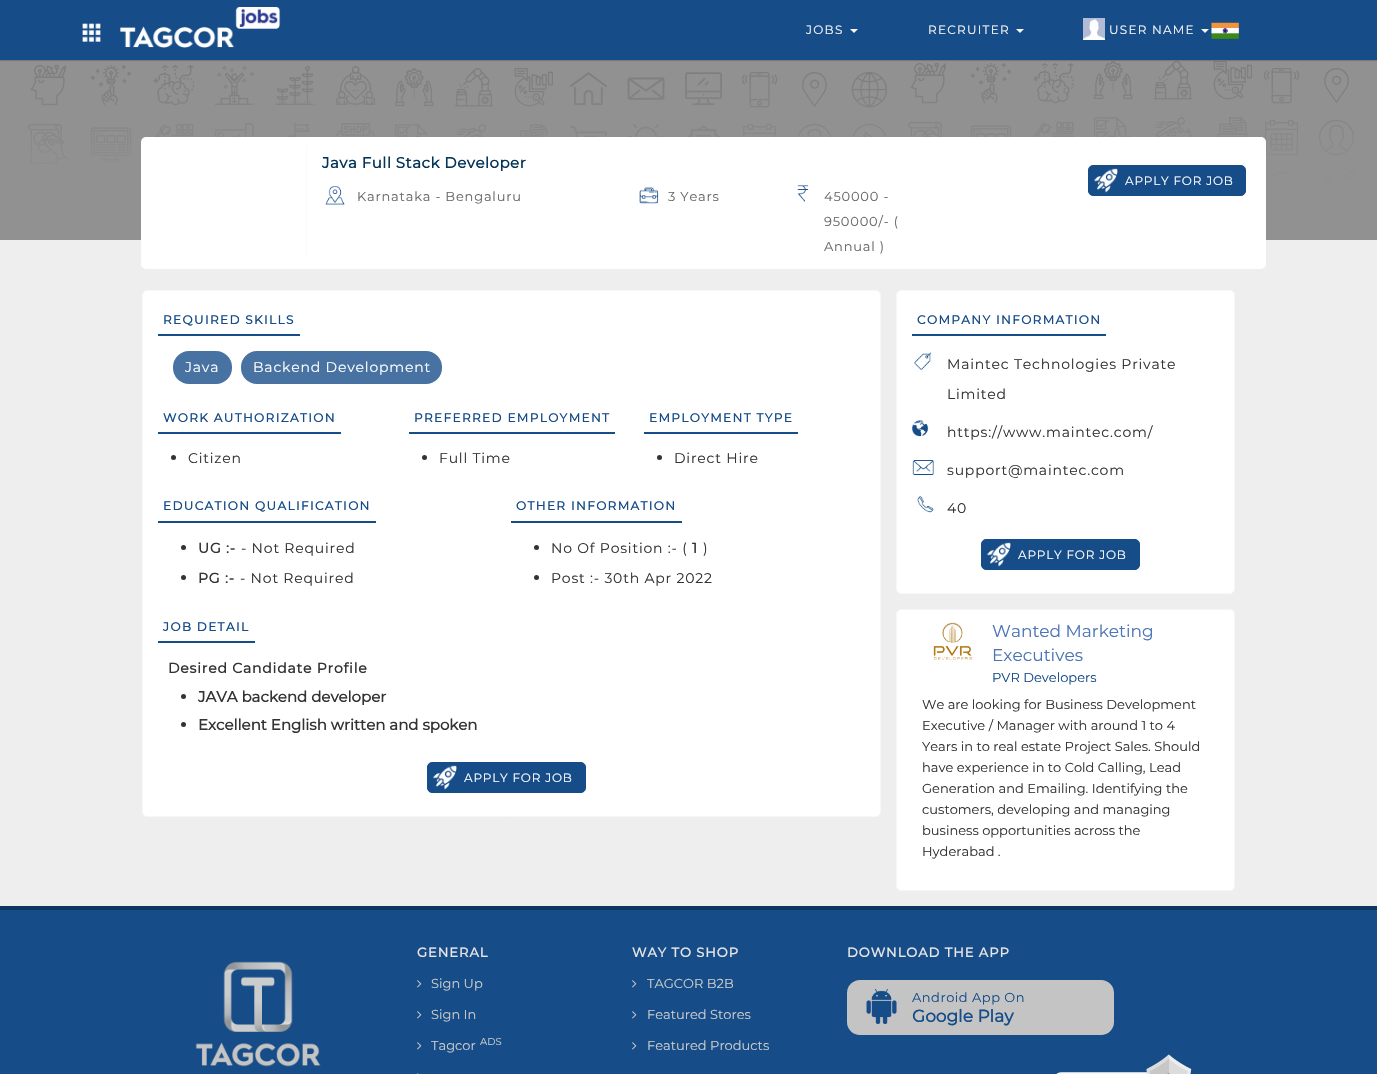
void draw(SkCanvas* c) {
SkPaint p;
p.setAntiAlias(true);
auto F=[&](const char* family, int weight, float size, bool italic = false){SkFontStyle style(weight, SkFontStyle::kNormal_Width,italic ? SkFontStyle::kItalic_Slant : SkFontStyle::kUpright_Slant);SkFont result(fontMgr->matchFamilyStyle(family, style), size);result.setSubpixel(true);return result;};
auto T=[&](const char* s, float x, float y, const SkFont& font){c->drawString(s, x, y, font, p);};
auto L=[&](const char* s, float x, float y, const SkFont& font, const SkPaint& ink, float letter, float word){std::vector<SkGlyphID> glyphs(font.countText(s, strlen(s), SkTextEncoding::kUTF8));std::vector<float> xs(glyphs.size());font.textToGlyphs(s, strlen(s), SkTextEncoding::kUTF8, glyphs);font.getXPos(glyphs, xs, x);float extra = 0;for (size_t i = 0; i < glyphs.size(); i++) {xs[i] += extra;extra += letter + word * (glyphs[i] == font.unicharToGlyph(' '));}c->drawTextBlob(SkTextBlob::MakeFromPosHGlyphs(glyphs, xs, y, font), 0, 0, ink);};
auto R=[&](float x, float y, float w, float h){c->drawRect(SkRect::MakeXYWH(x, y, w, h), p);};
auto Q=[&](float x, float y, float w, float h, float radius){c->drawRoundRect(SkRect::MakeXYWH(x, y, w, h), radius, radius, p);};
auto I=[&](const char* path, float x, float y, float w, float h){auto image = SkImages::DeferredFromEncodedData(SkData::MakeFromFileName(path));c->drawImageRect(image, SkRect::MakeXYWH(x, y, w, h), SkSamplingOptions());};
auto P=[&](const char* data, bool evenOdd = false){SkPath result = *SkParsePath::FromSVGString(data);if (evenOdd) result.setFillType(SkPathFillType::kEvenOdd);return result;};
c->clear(0xffeeeeee);
p.setColor(0xff919191);
R(0,60,1377,180);
I("5.png",28,61,1326,120);
p.setColor(0x29000000);
p.setMaskFilter(SkMaskFilter::MakeBlur(kNormal_SkBlurStyle, .5));
c->drawRect(SkRect::MakeXYWH(0,1,1377,60),p);
p.setMaskFilter(nullptr);
p.setColor(0xff164c88);
R(0,0,1377,60);
I("1.png",82,23,19,19);
I("2.png",120,7,161,41);
auto f1 = F("Montserrat",100,12);
p.setColor(0xfff9f6f6);
L("JOBS",806,34,f1,p,1.25,0);
c->drawPath(P("M850 29h8l-4 4z"),p);
L("RECRUITER",928,34,f1,p,1.25,0);
c->drawPath(P("M1016 29h8l-4 4z"),p);
I("3.png",1083,18,22,22);
L("USER NAME",1109,34,f1,p,1.25,0);
c->drawPath(P("M1201 29h8l-4 4z"),p);
I("4.png",1211,22,28,17);
p.setColor(0xffffffff);
Q(141,137,1125,132,5);
p.setStroke(true);
p.setStrokeWidth(1);
p.setColor(0xfff5f5f5);
p.setPathEffect(SkDashPathEffect::Make({{1,1}}, 0));
c->drawPath(P("M306.5 147v112"),p);
p.setPathEffect(nullptr);
auto f2 = F("Montserrat",700,15);
p.setStroke(false);
p.setColor(0xff043458);
L("Java Full Stack Developer",322,168,f2,p,.5,0);
I("6.png",325,186,20,19);
auto f3 = F("Montserrat",100,13);
p.setColor(0xff6b6666);
L("Karnataka - Bengaluru",357,201,f3,p,.8,0);
I("7.png",639,187,20,17);
L("3 Years",668,201,f3,p,.8,0);
I("8.png",797,185,12,17);
L("450000 -",824,201,f3,p,.8,0);
L("950000/- (",824,226,f3,p,.8,0);
L("Annual )",824,251,f3,p,.8,0);
p.setColor(0xff164c88);
c->drawRoundRect(SkRect::MakeXYWH(1088.5,165.5,157,30),4.5,4.5,p);
p.setStroke(true);
c->drawRoundRect(SkRect::MakeXYWH(1088.5,165.5,157,30),4.5,4.5,p);
I("9.png",1094,168,24,25);
p.setStroke(false);
p.setColor(0xffffffff);
L("APPLY FOR JOB",1125,185,f1,p,.8,0);
c->drawRoundRect(SkRect::MakeXYWH(142.5,290.5,738,526),4.5,4.5,p);
p.setStroke(true);
p.setColor(0xfff6f7f9);
c->drawRoundRect(SkRect::MakeXYWH(142.5,290.5,738,526),4.5,4.5,p);
p.setStroke(false);
p.setColor(0xff164c88);
R(158,334,142,2);
auto f4 = F("Montserrat",700,12);
L("REQUIRED SKILLS",163,324,f4,p,1.4,0);
p.setColor(0xff4772a1);
Q(173,351,59,33,16);
auto f5 = F("Montserrat",100,14);
p.setColor(0xffffffff);
L("Java",185,372,f5,p,.8,0);
p.setColor(0xff4772a1);
Q(241,351,201,33,16);
p.setColor(0xffffffff);
L("Backend Development",253,372,f5,p,.8,0);
p.setColor(0xff164c88);
R(158,432,183,2);
L("WORK AUTHORIZATION",163,422,f4,p,1.4,0);
p.setColor(0xff333333);
c->drawCircle(173.5,457.5,2.5,p);
L("Citizen",188,463,f5,p,.8,0);
p.setColor(0xff164c88);
R(409,432,206,2);
L("PREFERRED EMPLOYMENT",414,422,f4,p,1.4,0);
p.setColor(0xff333333);
c->drawCircle(424.5,457.5,2.5,p);
L("Full Time",439,463,f5,p,.8,0);
p.setColor(0xff164c88);
R(644,432,154,2);
L("EMPLOYMENT TYPE",649,422,f4,p,1.4,0);
p.setColor(0xff333333);
c->drawCircle(659.5,457.5,2.5,p);
L("Direct Hire",674,463,f5,p,.8,0);
p.setColor(0xff164c88);
R(158,521,218,2);
L("EDUCATION QUALIFICATION",163,510,f4,p,1.4,0);
p.setColor(0xff333333);
c->drawCircle(183.5,547.5,2.5,p);
auto f6 = F("Montserrat",700,14);
L("UG :-",198,553,f6,p,.8,0);
L("- Not Required",241,553,f5,p,.8,0);
c->drawCircle(183.5,577.5,2.5,p);
L("PG :-",198,583,f6,p,.8,0);
L("- Not Required",240,583,f5,p,.8,0);
p.setColor(0xff164c88);
R(511,521,171,2);
L("OTHER INFORMATION",516,510,f4,p,1.4,0);
p.setColor(0xff333333);
c->drawCircle(536.5,547.5,2.5,p);
L("No Of Position :- (",551,553,f5,p,.8,0);
L("1",692,553,f6,p,.8,0);
L(")",703,553,f5,p,.8,0);
c->drawCircle(536.5,577.5,2.5,p);
L("Post :- 30th Apr 2022",551,583,f5,p,.8,0);
p.setColor(0xff164c88);
R(158,641,97,2);
L("JOB DETAIL",163,631,f4,p,1.4,0);
p.setColor(0xff333333);
L("Desired Candidate Profile",168,673,f6,p,.8,0);
c->drawCircle(183.5,696.5,2.5,p);
T("JAVA backend developer",198,702,f2);
c->drawCircle(183.5,724.5,2.5,p);
T("Excellent English written and spoken",198,730,f2);
p.setColor(0xff164c88);
c->drawRoundRect(SkRect::MakeXYWH(427.5,762.5,158,30),4.5,4.5,p);
p.setStroke(true);
c->drawRoundRect(SkRect::MakeXYWH(427.5,762.5,158,30),4.5,4.5,p);
I("9.png",433,765,24,25);
p.setStroke(false);
p.setColor(0xffffffff);
L("APPLY FOR JOB",464,782,f1,p,.8,0);
c->drawRoundRect(SkRect::MakeXYWH(896.5,290.5,338,303),4.5,4.5,p);
p.setStroke(true);
p.setColor(0xfff6f7f9);
c->drawRoundRect(SkRect::MakeXYWH(896.5,290.5,338,303),4.5,4.5,p);
p.setStroke(false);
p.setColor(0xff164c88);
R(912,334,194,2);
L("COMPANY INFORMATION",917,324,f4,p,1.4,0);
I("10.png",914,352,18,18);
p.setColor(0xff333333);
L("Maintec Technologies Private",947,369,f5,p,.8,0);
L("Limited",947,399,f5,p,.8,0);
I("11.png",912,420,17,17);
L("https://www.maintec.com/",947,437,f5,p,.8,0);
I("12.png",912,460,22,15);
L("support@maintec.com",947,475,f5,p,.8,0);
I("13.png",917,496,17,17);
L("40",947,513,f5,p,.8,0);
p.setColor(0xff164c88);
c->drawRoundRect(SkRect::MakeXYWH(981.5,539.5,158,30),4.5,4.5,p);
p.setStroke(true);
c->drawRoundRect(SkRect::MakeXYWH(981.5,539.5,158,30),4.5,4.5,p);
I("9.png",987,542,24,25);
p.setStroke(false);
p.setColor(0xffffffff);
L("APPLY FOR JOB",1018,559,f1,p,.8,0);
c->drawRoundRect(SkRect::MakeXYWH(896.5,609.5,338,281),4.5,4.5,p);
p.setStroke(true);
p.setColor(0xfff6f7f9);
c->drawRoundRect(SkRect::MakeXYWH(896.5,609.5,338,281),4.5,4.5,p);
I("14.png",933,622,40,38);
auto f7 = F("Montserrat",100,17);
p.setStroke(false);
p.setColor(0xff4b75b5);
T("Wanted Marketing",992,637,f7);
T("Executives",992,661,f7);
p.setColor(0xff164c88);
T("PVR Developers",992,682,f3);
p.setColor(0xff333333);
T("We are looking for Business Development",922,709,f3);
T("Executive / Manager with around 1 to 4",922,730,f3);
T("Years in to real estate Project Sales. Should",922,751,f3);
T("have experience in to Cold Calling, Lead",922,772,f3);
T("Generation and Emailing. Identifying the",922,793,f3);
T("customers, developing and managing",922,814,f3);
T("business opportunities across the",922,835,f3);
T("Hyderabad .",922,856,f3);
p.setColor(0xff0e3663);
R(0,906,1377,4);
p.setColor(0xff164c88);
R(0,910,1377,164);
I("15.png",195,961,126,106);
auto f8 = F("Montserrat",700,13);
p.setColor(0xffe8e5e5);
L("GENERAL",417,957,f8,p,1,0);
I("16.png",417,980,5,8);
p.setColor(0xffcccccc);
T("Sign Up",431,988,f3);
I("16.png",417,1011,5,8);
T("Sign In",431,1019,f3);
I("16.png",417,1042,5,8);
T("Tagcor",431,1050,f3);
auto f9 = F("Montserrat",100,10);
T("ADS",480,1045,f9);
I("17.png",417,1073,2,1);
p.setColor(0xffe8e5e5);
L("WAY TO SHOP",632,957,f8,p,1,0);
I("16.png",632,980,5,8);
p.setColor(0xffcccccc);
T("TAGCOR B2B",647,988,f3);
I("16.png",632,1011,5,8);
T("Featured Stores",647,1019,f3);
I("16.png",632,1042,5,8);
T("Featured Products",647,1050,f3);
p.setColor(0xffe8e5e5);
L("DOWNLOAD THE APP",847,957,f8,p,1,0);
p.setColor(0xffc4c4c4);
Q(847,980,267,55,13);
I("18.png",866,989,31,35);
p.setColor(0xff164c88);
L("Android App On",912,1002,f3,p,.5,0);
auto f10 = F("Montserrat",700,17);
T("Google Play",912,1022,f10);
I("19.png",1056,1054,136,20);
}
